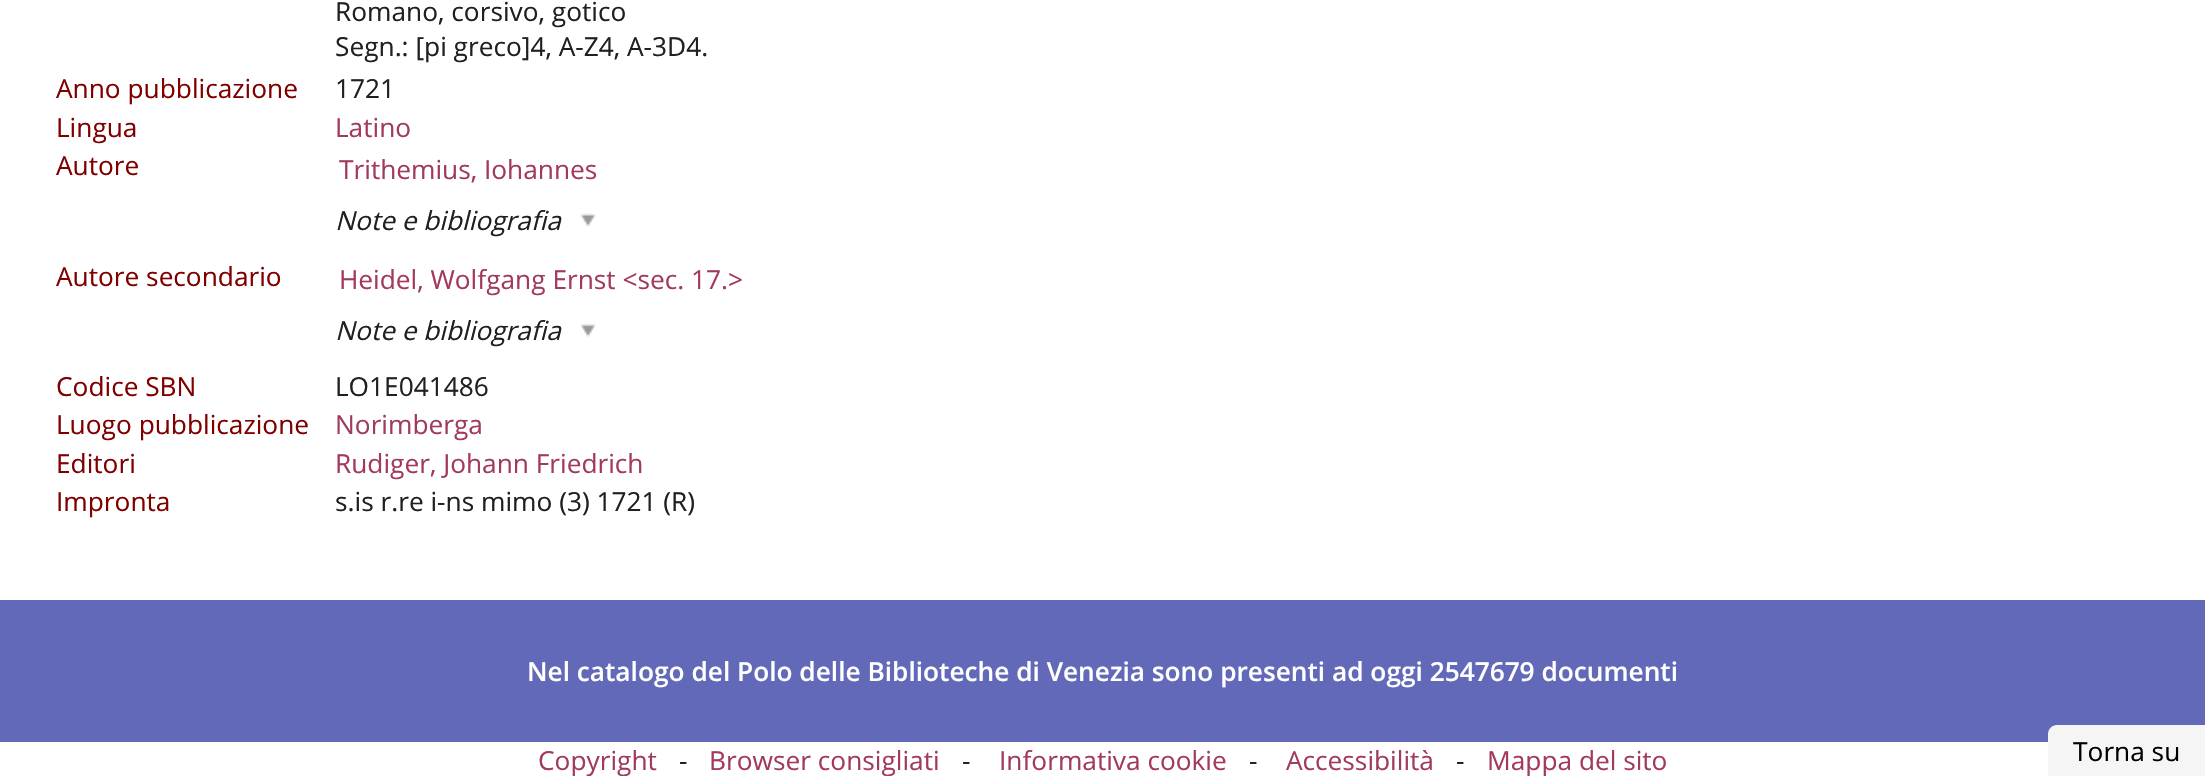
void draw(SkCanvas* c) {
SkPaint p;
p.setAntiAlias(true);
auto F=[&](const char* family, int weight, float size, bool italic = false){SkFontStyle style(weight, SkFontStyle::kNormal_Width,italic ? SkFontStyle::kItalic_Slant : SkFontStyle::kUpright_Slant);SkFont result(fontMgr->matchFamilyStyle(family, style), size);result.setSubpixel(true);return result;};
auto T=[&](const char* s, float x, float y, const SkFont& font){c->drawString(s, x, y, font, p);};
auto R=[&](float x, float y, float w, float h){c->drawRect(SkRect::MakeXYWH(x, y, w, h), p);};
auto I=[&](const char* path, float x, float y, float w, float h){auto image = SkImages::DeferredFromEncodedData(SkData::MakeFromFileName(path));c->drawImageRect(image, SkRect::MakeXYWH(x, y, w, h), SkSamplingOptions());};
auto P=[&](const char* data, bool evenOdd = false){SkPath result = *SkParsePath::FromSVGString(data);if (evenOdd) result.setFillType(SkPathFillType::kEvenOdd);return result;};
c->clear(0xffffffff);
auto f1 = F("Open Sans",400,26.25);
p.setColor(0xff202020);
T("Romano, corsivo, gotico",335,21,f1);
T("Segn.: [pi greco]4, A-Z4, A-3D4.",335,56,f1);
p.setColor(0xff800000);
T("Anno pubblicazione",56,98,f1);
p.setColor(0xff202020);
T("1721",335,98,f1);
p.setColor(0xff800000);
T("Lingua",56,137,f1);
p.setColor(0xffa23a5b);
T("Latino",335,137,f1);
p.setColor(0xff800000);
T("Autore",56,175,f1);
p.setColor(0xffa23a5b);
T("Trithemius, Iohannes",339,179,f1);
I("1.png",580,213,16,14);
auto f2 = F("Open Sans",400,26.25,true);
p.setColor(0xff202020);
T("Note e bibliografia",335,230,f2);
p.setColor(0xff800000);
T("Autore secondario",56,286,f1);
p.setColor(0xffa23a5b);
T("Heidel, Wolfgang Ernst <sec. 17.>",339,289,f1);
I("2.png",580,323,16,14);
p.setColor(0xff202020);
T("Note e bibliografia",335,340,f2);
p.setColor(0xff800000);
T("Codice SBN",56,396,f1);
p.setColor(0xff202020);
T("LO1E041486",335,396,f1);
p.setColor(0xff800000);
T("Luogo pubblicazione",56,434,f1);
p.setColor(0xffa23a5b);
T("Norimberga",335,434,f1);
p.setColor(0xff800000);
T("Editori",56,473,f1);
p.setColor(0xffa23a5b);
T("Rudiger, Johann Friedrich",335,473,f1);
p.setColor(0xff800000);
T("Impronta",56,511,f1);
p.setColor(0xff202020);
T("s.is r.re i-ns mimo (3) 1721 (R)",335,511,f1);
p.setColor(0xff6169b8);
R(0,600,2205,142);
auto f3 = F("Open Sans",600,26.25);
p.setColor(0xffffffff);
T("Nel catalogo del Polo delle Biblioteche di Venezia sono presenti ad oggi 2547679 documenti",527,681,f3);
p.setColor(0xffa23a5b);
T("Copyright",538,770,f1);
p.setColor(0xff202020);
T("-",679,770,f1);
p.setColor(0xffa23a5b);
T("Browser consigliati",709,770,f1);
p.setColor(0xff202020);
T("-",962,770,f1);
p.setColor(0xffa23a5b);
T("Informativa cookie",999,770,f1);
p.setColor(0xff202020);
T("-",1249,770,f1);
p.setColor(0xffa23a5b);
T("Accessibilità",1286,770,f1);
p.setColor(0xff202020);
T("-",1456,770,f1);
p.setColor(0xffa23a5b);
T("Mappa del sito",1487,770,f1);
p.setColor(0xfff5f5f5);
c->drawPath(P("M2057 725h148v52h-157v-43c0-5 4-9 9-9z"),p);
p.setColor(0xff000000);
T("Torna su",2073,761,f1);
}
